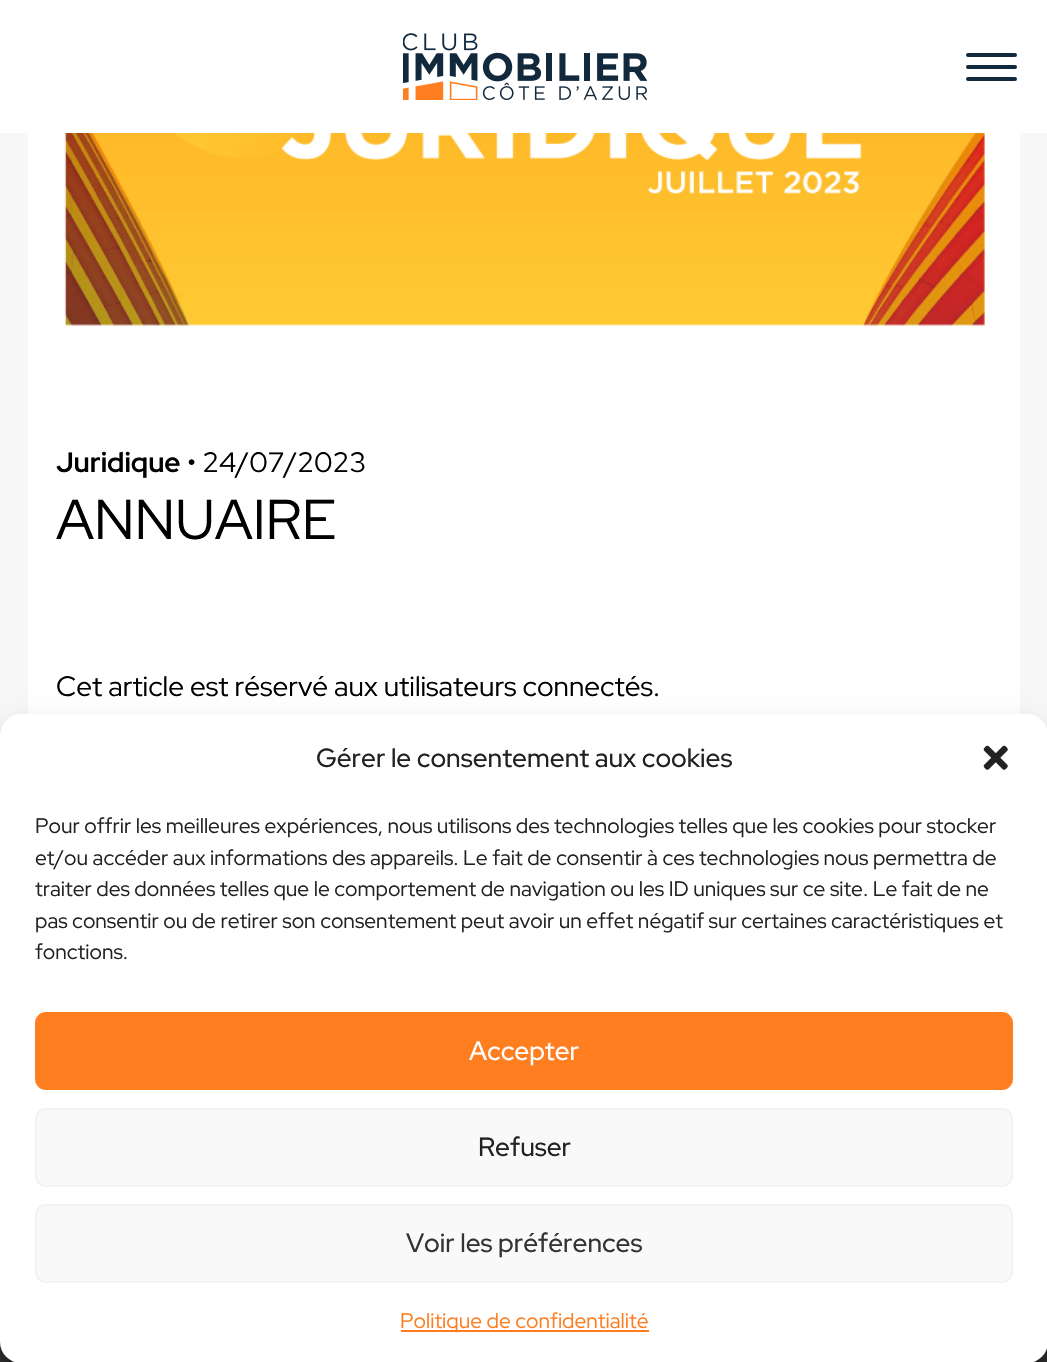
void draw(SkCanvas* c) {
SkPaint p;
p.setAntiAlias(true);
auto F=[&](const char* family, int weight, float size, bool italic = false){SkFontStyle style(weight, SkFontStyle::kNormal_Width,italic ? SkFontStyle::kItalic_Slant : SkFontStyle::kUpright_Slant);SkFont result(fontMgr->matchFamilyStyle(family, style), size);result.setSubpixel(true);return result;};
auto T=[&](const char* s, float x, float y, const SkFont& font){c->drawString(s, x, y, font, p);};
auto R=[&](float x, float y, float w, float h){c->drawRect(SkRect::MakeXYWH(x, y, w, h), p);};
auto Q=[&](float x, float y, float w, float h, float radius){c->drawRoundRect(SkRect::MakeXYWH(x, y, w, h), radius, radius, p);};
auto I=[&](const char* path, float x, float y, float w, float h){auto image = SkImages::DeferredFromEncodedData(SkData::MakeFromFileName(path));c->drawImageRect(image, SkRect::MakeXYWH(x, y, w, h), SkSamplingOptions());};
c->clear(0xfff7f7f7);
p.setColor(0xffffffff);
R(0,0,1047,133);
I("1.png",403,33,244,67);
p.setColor(0xff12293d);
Q(966,53,51,4,2);
Q(966,65,51,4,2);
Q(966,77,51,4,2);
p.setColor(0xffffffff);
R(28,133,992,581);
I("2.png",64,133,921,194);
auto f1 = F("Red Hat Display",700,28);
p.setColor(0xff000000);
T("Juridique",56,472,f1);
auto f2 = F("Red Hat Display",400,28);
T("• 24/07/2023",187,472,f2);
auto f3 = F("Red Hat Display",400,56);
T("ANNUAIRE",56,539,f3);
T("Cet article est réservé aux utilisateurs connectés.",56,696,f2);
p.setColor(0xff333333);
R(0,1342,1047,20);
p.setColor(0x3b000000);
p.setMaskFilter(SkMaskFilter::MakeBlur(kNormal_SkBlurStyle, 5));
c->drawRoundRect(SkRect::MakeXYWH(0,725,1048,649),21,21,p);
p.setMaskFilter(nullptr);
p.setColor(0x30000000);
p.setMaskFilter(SkMaskFilter::MakeBlur(kNormal_SkBlurStyle, 17.5));
c->drawRoundRect(SkRect::MakeXYWH(0,732,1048,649),21,21,p);
p.setMaskFilter(nullptr);
p.setColor(0xffffffff);
Q(0,714,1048,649,21);
auto f4 = F("Red Hat Display",500,26.25);
p.setColor(0xff222222);
T("Gérer le consentement aux cookies",316,767,f4);
I("3.png",983,745,25,25);
auto f5 = F("Red Hat Display",400,21);
T("Pour offrir les meilleures expériences, nous utilisons des technologies telles que les cookies pour stocker",35,833,f5);
T("et/ou accéder aux informations des appareils. Le fait de consentir à ces technologies nous permettra de",35,865,f5);
T("traiter des données telles que le comportement de navigation ou les ID uniques sur ce site. Le fait de ne",35,896,f5);
T("pas consentir ou de retirer son consentement peut avoir un effet négatif sur certaines caractéristiques et",35,928,f5);
T("fonctions.",35,959,f5);
p.setColor(0xffff7e20);
c->drawRoundRect(SkRect::MakeXYWH(36,1013,976,76),10,10,p);
p.setStroke(true);
p.setStrokeWidth(2);
c->drawRoundRect(SkRect::MakeXYWH(36,1013,976,76),10,10,p);
p.setStroke(false);
p.setColor(0xffffffff);
T("Accepter",469,1060,f4);
p.setColor(0xfff9f9f9);
c->drawRoundRect(SkRect::MakeXYWH(36,1109,976,77),10,10,p);
p.setStroke(true);
p.setColor(0xfff2f2f2);
c->drawRoundRect(SkRect::MakeXYWH(36,1109,976,77),10,10,p);
p.setStroke(false);
p.setColor(0xff222222);
T("Refuser",478,1156,f4);
p.setColor(0xfff9f9f9);
c->drawRoundRect(SkRect::MakeXYWH(36,1205,976,77),10,10,p);
p.setStroke(true);
p.setColor(0xfff2f2f2);
c->drawRoundRect(SkRect::MakeXYWH(36,1205,976,77),10,10,p);
p.setStroke(false);
p.setColor(0xff333333);
T("Voir les préférences",406,1252,f4);
p.setColor(0xffff7c1e);
R(401,1330,248,2);
T("Politique de confidentialité",400,1328,f5);
}
